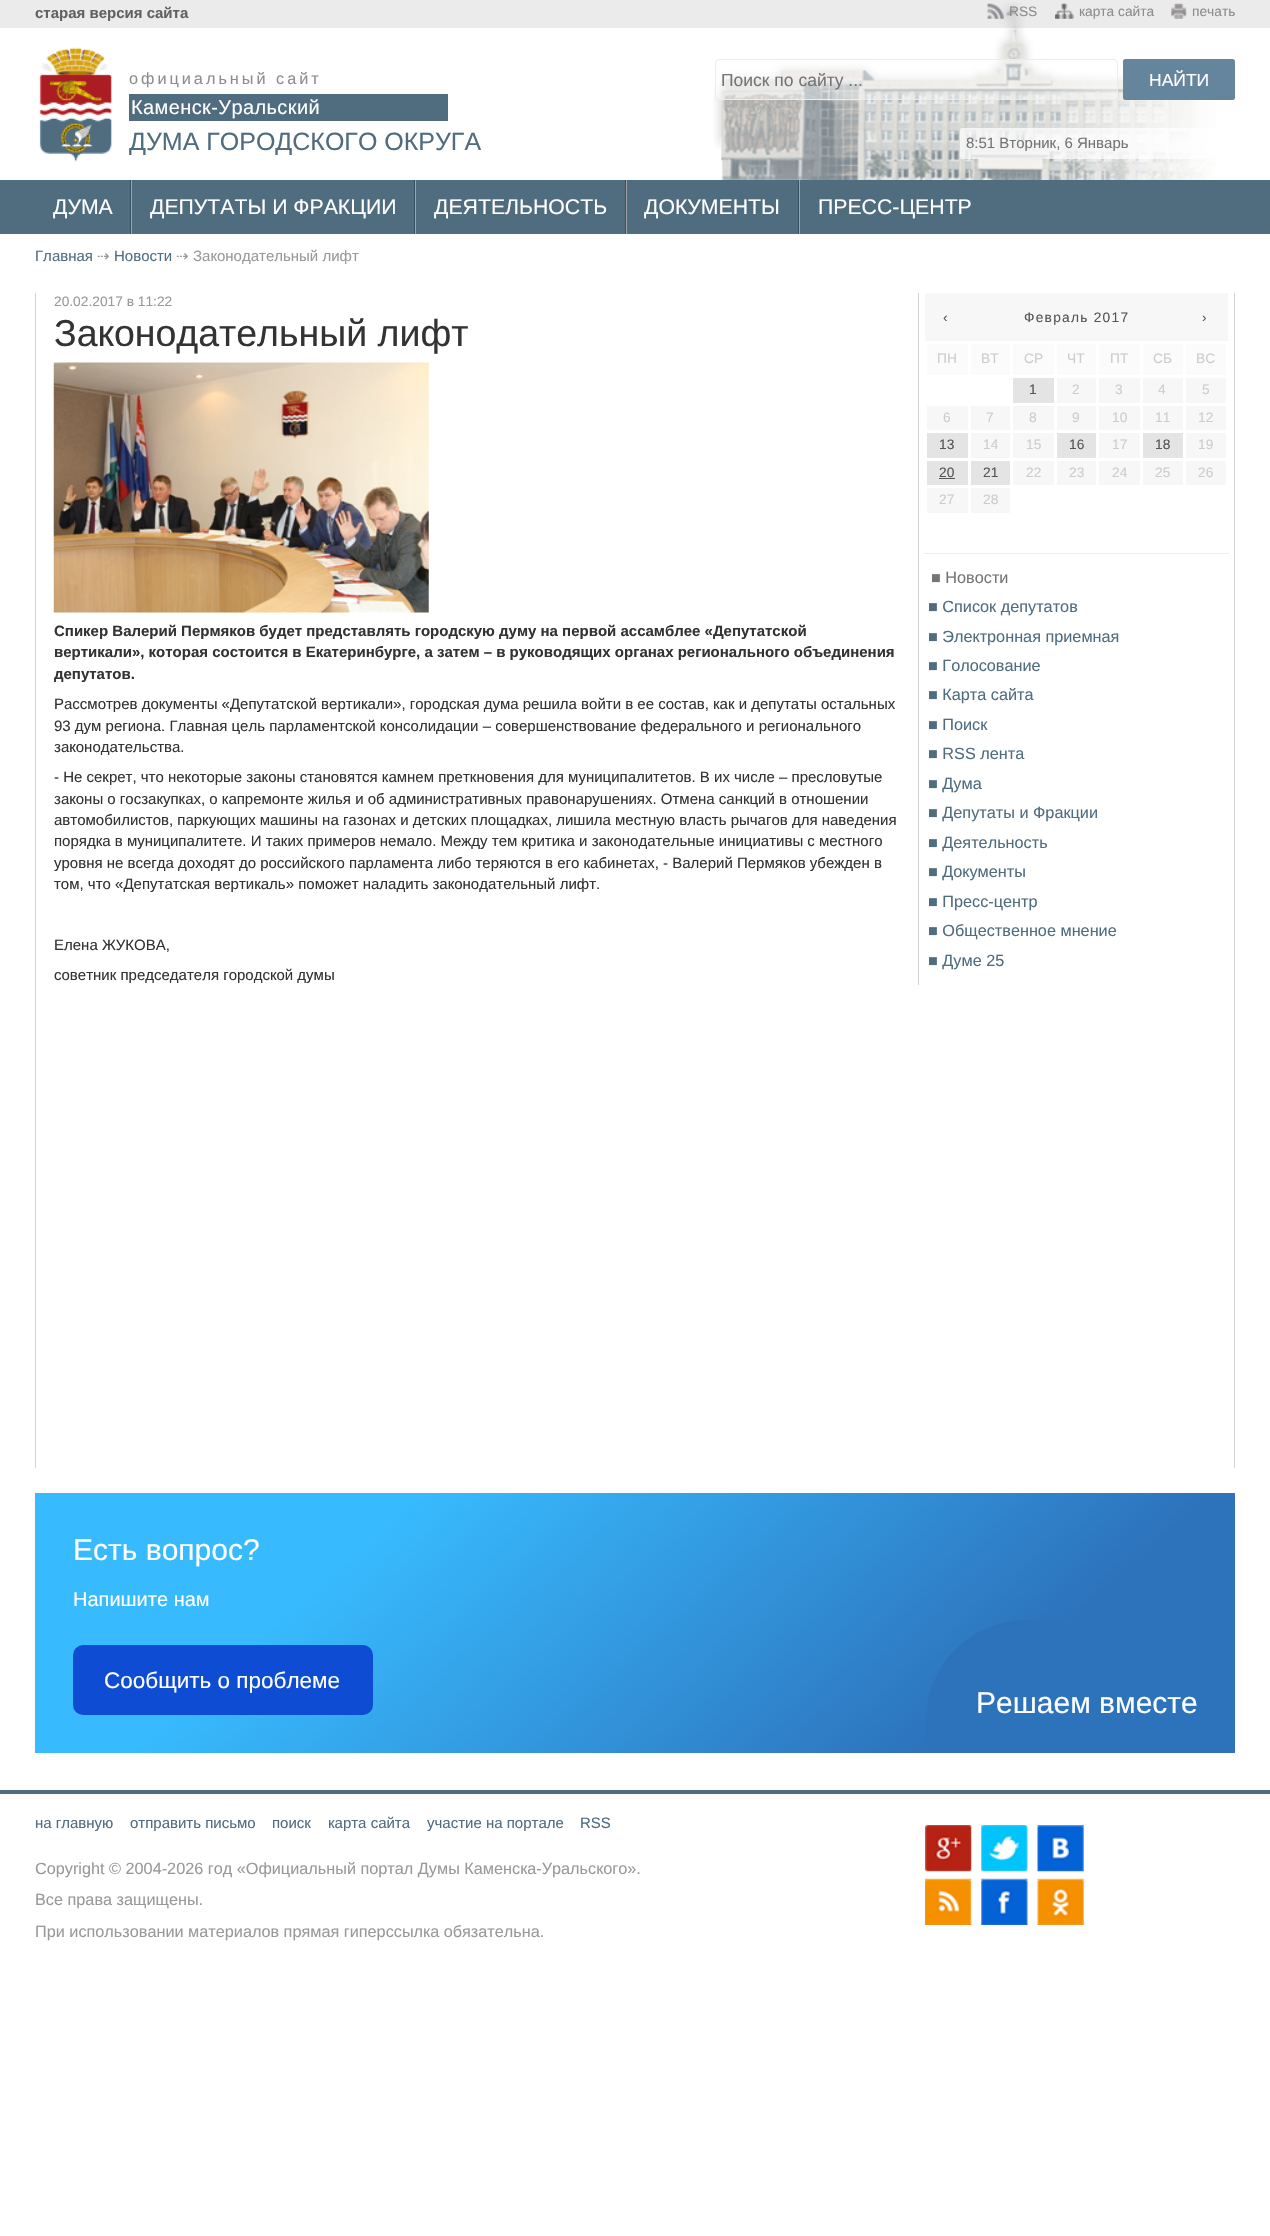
void draw(SkCanvas* c) {
SkPaint p;
p.setAntiAlias(true);
auto F=[&](const char* family, int weight, float size, bool italic = false){SkFontStyle style(weight, SkFontStyle::kNormal_Width,italic ? SkFontStyle::kItalic_Slant : SkFontStyle::kUpright_Slant);SkFont result(fontMgr->matchFamilyStyle(family, style), size);result.setSubpixel(true);return result;};
auto T=[&](const char* s, float x, float y, const SkFont& font){c->drawString(s, x, y, font, p);};
auto L=[&](const char* s, float x, float y, const SkFont& font, const SkPaint& ink, float letter, float word){std::vector<SkGlyphID> glyphs(font.countText(s, strlen(s), SkTextEncoding::kUTF8));std::vector<float> xs(glyphs.size());font.textToGlyphs(s, strlen(s), SkTextEncoding::kUTF8, glyphs);font.getXPos(glyphs, xs, x);float extra = 0;for (size_t i = 0; i < glyphs.size(); i++) {xs[i] += extra;extra += letter + word * (glyphs[i] == font.unicharToGlyph(' '));}c->drawTextBlob(SkTextBlob::MakeFromPosHGlyphs(glyphs, xs, y, font), 0, 0, ink);};
auto R=[&](float x, float y, float w, float h){c->drawRect(SkRect::MakeXYWH(x, y, w, h), p);};
auto Q=[&](float x, float y, float w, float h, float radius){c->drawRoundRect(SkRect::MakeXYWH(x, y, w, h), radius, radius, p);};
auto I=[&](const char* path, float x, float y, float w, float h){auto image = SkImages::DeferredFromEncodedData(SkData::MakeFromFileName(path));c->drawImageRect(image, SkRect::MakeXYWH(x, y, w, h), SkSamplingOptions());};
auto P=[&](const char* data, bool evenOdd = false){SkPath result = *SkParsePath::FromSVGString(data);if (evenOdd) result.setFillType(SkPathFillType::kEvenOdd);return result;};
c->clear(0xffffffff);
p.setColor(0xffebebeb);
R(0,0,1270,28);
auto f1 = F("Liberation Sans",700,15);
p.setColor(0xff616161);
T("старая версия сайта",35,18,f1);
I("5.png",713,2,503,178);
I("1.png",987,3,17,16);
auto f2 = F("Liberation Sans",400,13.75);
p.setColor(0xff8d8d8d);
T("RSS",1009,16,f2);
I("2.png",1055,3,19,16);
T("карта сайта",1079,16,f2);
I("3.png",1171,3,16,16);
T("печать",1192,16,f2);
I("4.png",38,47,74,115);
auto f3 = F("Liberation Sans",400,16.25);
L("официальный сайт",129,84,f3,p,3,0);
p.setColor(0xff506c7f);
R(129,94,319,27);
auto f4 = F("Liberation Sans",400,20);
p.setColor(0xffffffff);
L("Каменск-Уральский",131,114,f4,p,.4,0);
auto f5 = F("Liberation Sans",400,25);
p.setColor(0xff506c7f);
T("ДУМА ГОРОДСКОГО ОКРУГА",129,150,f5);
p.setColor(0x66ffffff);
c->drawRoundRect(SkRect::MakeXYWH(715.5,59.5,402,40),3.5,3.5,p);
p.setStroke(true);
p.setStrokeWidth(1);
p.setColor(0xffeaeced);
c->drawRoundRect(SkRect::MakeXYWH(715.5,59.5,402,40),3.5,3.5,p);
auto f6 = F("Liberation Sans",400,17.5);
p.setStroke(false);
p.setColor(0xff757575);
T("Поиск по сайту ...",721,86,f6);
p.setColor(0xff64859b);
Q(1123,59,112,41,2.5);
p.setColor(0xffffffff);
T("НАЙТИ",1149,86,f6);
p.setColor(0xb3ffffff);
Q(960,128,275,31,2.5);
auto f7 = F("Liberation Sans",400,15);
p.setColor(0xff757575);
T("8:51 Вторник, 6 Январь",966,148,f7);
p.setColor(0xff506c7f);
R(0,180,1270,54);
p.setColor(0xff345062);
R(130,180,1,54);
auto f8 = F("Liberation Sans",400,21.25);
p.setColor(0xffffffff);
T("ДУМА",53,214,f8);
p.setColor(0xff345062);
R(414,180,1,54);
p.setColor(0xffa3a3a3);
R(131,180,1,54);
p.setColor(0xffffffff);
T("ДЕПУТАТЫ И ФРАКЦИИ",150,214,f8);
p.setColor(0xff345062);
R(625,180,1,54);
p.setColor(0xffa3a3a3);
R(415,180,1,54);
p.setColor(0xffffffff);
T("ДЕЯТЕЛЬНОСТЬ",434,214,f8);
p.setColor(0xff345062);
R(798,180,1,54);
p.setColor(0xffa3a3a3);
R(626,180,1,54);
p.setColor(0xffffffff);
T("ДОКУМЕНТЫ",644,214,f8);
p.setColor(0xffa3a3a3);
R(799,180,1,54);
p.setColor(0xffffffff);
T("ПРЕСС-ЦЕНТР",818,214,f8);
p.setColor(0xff506c7f);
T("Главная",35,261,f7);
auto f9 = F("DejaVu Sans",400,15);
p.setColor(0xff999999);
T("⇢",97,261,f9);
p.setColor(0xff506c7f);
T("Новости",114,261,f7);
p.setColor(0xff999999);
T("⇢",176,261,f9);
T("Законодательный лифт",193,261,f7);
p.setColor(0xffd2d2d2);
R(1234,293,1,1175);
R(35,293,1,1175);
p.setColor(0xff999999);
T("20.02.2017 в 11:22",54,306,f2);
auto f10 = F("Liberation Sans",400,37.5);
p.setColor(0xff333333);
T("Законодательный лифт",54,346,f10);
I("6.png",53,362,376,251);
T("Спикер Валерий Пермяков будет представлять городскую думу на первой ассамблее «Депутатской",54,636,f1);
T("вертикали», которая состоится в Екатеринбурге, а затем – в руководящих органах регионального объединения",54,657,f1);
T("депутатов.",54,679,f1);
T("Рассмотрев документы «Депутатской вертикали», городская дума решила войти в ее состав, как и депутаты остальных",54,709,f7);
T("93 дум региона. Главная цель парламентской консолидации – совершенствование федерального и регионального",54,731,f7);
T("законодательства.",54,752,f7);
T("- Не секрет, что некоторые законы становятся камнем преткновения для муниципалитетов. В их числе – пресловутые",54,782,f7);
T("законы о госзакупках, о капремонте жилья и об административных правонарушениях. Отмена санкций в отношении",54,804,f7);
T("автомобилистов, паркующих машины на газонах и детских площадках, лишила местную власть рычагов для наведения",54,825,f7);
T("порядка в муниципалитете. И таких примеров немало. Между тем критика и законодательные инициативы с местного",54,846,f7);
T("уровня не всегда доходят до российского парламента либо теряются в его кабинетах, - Валерий Пермяков убежден в",54,868,f7);
T("том, что «Депутатская вертикаль» поможет наладить законодательный лифт.",54,889,f7);
T("Елена ЖУКОВА,",54,950,f7);
T("советник председателя городской думы",54,980,f7);
p.setColor(0xffd2d2d2);
R(918,293,1,692);
p.setColor(0xfff7f7f7);
R(925,293,303,48);
p.setColor(0xff555555);
L("‹",943,322,f2,p,1.25,0);
L("Февраль 2017",1024,322,f2,p,1.25,0);
L("›",1202,322,f2,p,1.25,0);
p.setColor(0xfffbfbfb);
R(927,344,41,31);
p.setColor(0xffcdcdcd);
T("ПН",937,363,f2);
p.setColor(0xfffbfbfb);
R(971,344,39,31);
p.setColor(0xffcdcdcd);
T("ВТ",981,363,f2);
p.setColor(0xfffbfbfb);
R(1013,344,41,31);
p.setColor(0xffcdcdcd);
T("СР",1024,363,f2);
p.setColor(0xfffbfbfb);
R(1057,344,39,31);
p.setColor(0xffcdcdcd);
T("ЧТ",1067,363,f2);
p.setColor(0xfffbfbfb);
R(1099,344,41,31);
p.setColor(0xffcdcdcd);
T("ПТ",1110,363,f2);
p.setColor(0xfffbfbfb);
R(1143,344,40,31);
p.setColor(0xffcdcdcd);
T("СБ",1153,363,f2);
p.setColor(0xfffbfbfb);
R(1186,344,40,31);
p.setColor(0xffcdcdcd);
T("ВС",1196,363,f2);
p.setColor(0xffe4e4e4);
R(1013,378,41,25);
p.setColor(0xff555555);
T("1",1029,394,f2);
p.setColor(0xfff7f7f7);
R(1057,378,39,25);
p.setColor(0xffcdcdcd);
T("2",1072,394,f2);
p.setColor(0xfff7f7f7);
R(1099,378,41,25);
p.setColor(0xffcdcdcd);
T("3",1115,394,f2);
p.setColor(0xfff7f7f7);
R(1143,378,40,25);
p.setColor(0xffcdcdcd);
T("4",1158,394,f2);
p.setColor(0xfff7f7f7);
R(1186,378,40,25);
p.setColor(0xffcdcdcd);
T("5",1202,394,f2);
p.setColor(0xfff7f7f7);
R(927,406,41,24);
p.setColor(0xffcdcdcd);
T("6",943,422,f2);
p.setColor(0xfff7f7f7);
R(971,406,39,24);
p.setColor(0xffcdcdcd);
T("7",986,422,f2);
p.setColor(0xfff7f7f7);
R(1013,406,41,24);
p.setColor(0xffcdcdcd);
T("8",1029,422,f2);
p.setColor(0xfff7f7f7);
R(1057,406,39,24);
p.setColor(0xffcdcdcd);
T("9",1072,422,f2);
p.setColor(0xfff7f7f7);
R(1099,406,41,24);
p.setColor(0xffcdcdcd);
T("10",1112,422,f2);
p.setColor(0xfff7f7f7);
R(1143,406,40,24);
p.setColor(0xffcdcdcd);
T("11",1155,422,f2);
p.setColor(0xfff7f7f7);
R(1186,406,40,24);
p.setColor(0xffcdcdcd);
T("12",1198,422,f2);
p.setColor(0xffe4e4e4);
R(927,433,41,25);
p.setColor(0xff555555);
T("13",939,449,f2);
p.setColor(0xfff7f7f7);
R(971,433,39,25);
p.setColor(0xffcdcdcd);
T("14",983,449,f2);
p.setColor(0xfff7f7f7);
R(1013,433,41,25);
p.setColor(0xffcdcdcd);
T("15",1026,449,f2);
p.setColor(0xffe4e4e4);
R(1057,433,39,25);
p.setColor(0xff555555);
T("16",1069,449,f2);
p.setColor(0xfff7f7f7);
R(1099,433,41,25);
p.setColor(0xffcdcdcd);
T("17",1112,449,f2);
p.setColor(0xffe4e4e4);
R(1143,433,40,25);
p.setColor(0xff555555);
T("18",1155,449,f2);
p.setColor(0xfff7f7f7);
R(1186,433,40,25);
p.setColor(0xffcdcdcd);
T("19",1198,449,f2);
p.setColor(0xffe4e4e4);
R(927,461,41,24);
p.setColor(0xff555555);
T("20",939,477,f2);
R(939,478,16,1);
p.setColor(0xffe4e4e4);
R(971,461,39,24);
p.setColor(0xff555555);
T("21",983,477,f2);
p.setColor(0xfff7f7f7);
R(1013,461,41,24);
p.setColor(0xffcdcdcd);
T("22",1026,477,f2);
p.setColor(0xfff7f7f7);
R(1057,461,39,24);
p.setColor(0xffcdcdcd);
T("23",1069,477,f2);
p.setColor(0xfff7f7f7);
R(1099,461,41,24);
p.setColor(0xffcdcdcd);
T("24",1112,477,f2);
p.setColor(0xfff7f7f7);
R(1143,461,40,24);
p.setColor(0xffcdcdcd);
T("25",1155,477,f2);
p.setColor(0xfff7f7f7);
R(1186,461,40,24);
p.setColor(0xffcdcdcd);
T("26",1198,477,f2);
p.setColor(0xfff7f7f7);
R(927,488,41,25);
p.setColor(0xffcdcdcd);
T("27",939,504,f2);
p.setColor(0xfff7f7f7);
R(971,488,39,25);
p.setColor(0xffcdcdcd);
T("28",983,504,f2);
p.setColor(0xffeeeeee);
R(924,553,305,1);
p.setColor(0xff757575);
T("■ Новости",931,583,f3);
p.setColor(0xff506c7f);
T("■ Список депутатов",928,612,f3);
T("■ Электронная приемная",928,642,f3);
T("■ Голосование",928,671,f3);
T("■ Карта сайта",928,700,f3);
T("■ Поиск",928,730,f3);
T("■ RSS лента",928,759,f3);
T("■ Дума",928,789,f3);
T("■ Депутаты и Фракции",928,818,f3);
T("■ Деятельность",928,848,f3);
T("■ Документы",928,877,f3);
T("■ Пресс-центр",928,907,f3);
T("■ Общественное мнение",928,936,f3);
T("■ Думе 25",928,966,f3);
{
const SkColor colors[] = {0xff38bafe,0xff2d73bc};
const float stops[] = {.26,.79};
const SkPoint ends[] = {{306,1252}, {964,1993}};
p.setShader(SkGradientShader::MakeLinear(ends, colors, stops, 2, SkTileMode::kClamp));
p.setAlpha(255);
}
R(35,1493,1200,260);
auto f11 = F("Liberation Sans",400,30);
p.setShader(nullptr);
p.setColor(0xffffffff);
T("Есть вопрос?",73,1560,f11);
T("Напишите нам",73,1606,f4);
p.setColor(0xff0d4cd3);
Q(73,1645,300,70,10);
auto f12 = F("Liberation Sans",400,22.5);
p.setColor(0xffffffff);
T("Сообщить о проблеме",104,1688,f12);
p.setColor(0xff2d73bc);
c->drawPath(P("M1026 1620h209v133h-309v-33c0-55 45-100 100-100z"),p);
p.setColor(0xffffffff);
T("Решаем вместе",976,1713,f11);
p.setColor(0xff506c7f);
R(0,1790,1270,4);
T("на главную",35,1828,f7);
T("отправить письмо",130,1828,f7);
T("поиск",272,1828,f7);
T("карта сайта",328,1828,f7);
T("участие на портале",427,1828,f7);
T("RSS",580,1828,f7);
I("7.png",925,1825,47,47);
I("8.png",981,1825,47,47);
I("9.png",1037,1825,47,47);
I("10.png",925,1878,47,47);
I("11.png",981,1878,47,47);
I("12.png",1037,1878,47,47);
p.setColor(0xff999999);
T("Copyright © 2004-2026 год «Официальный портал Думы Каменска-Уральского».",35,1874,f3);
T("Все права защищены.",35,1905,f3);
T("При использовании материалов прямая гиперссылка обязательна.",35,1937,f3);
}
